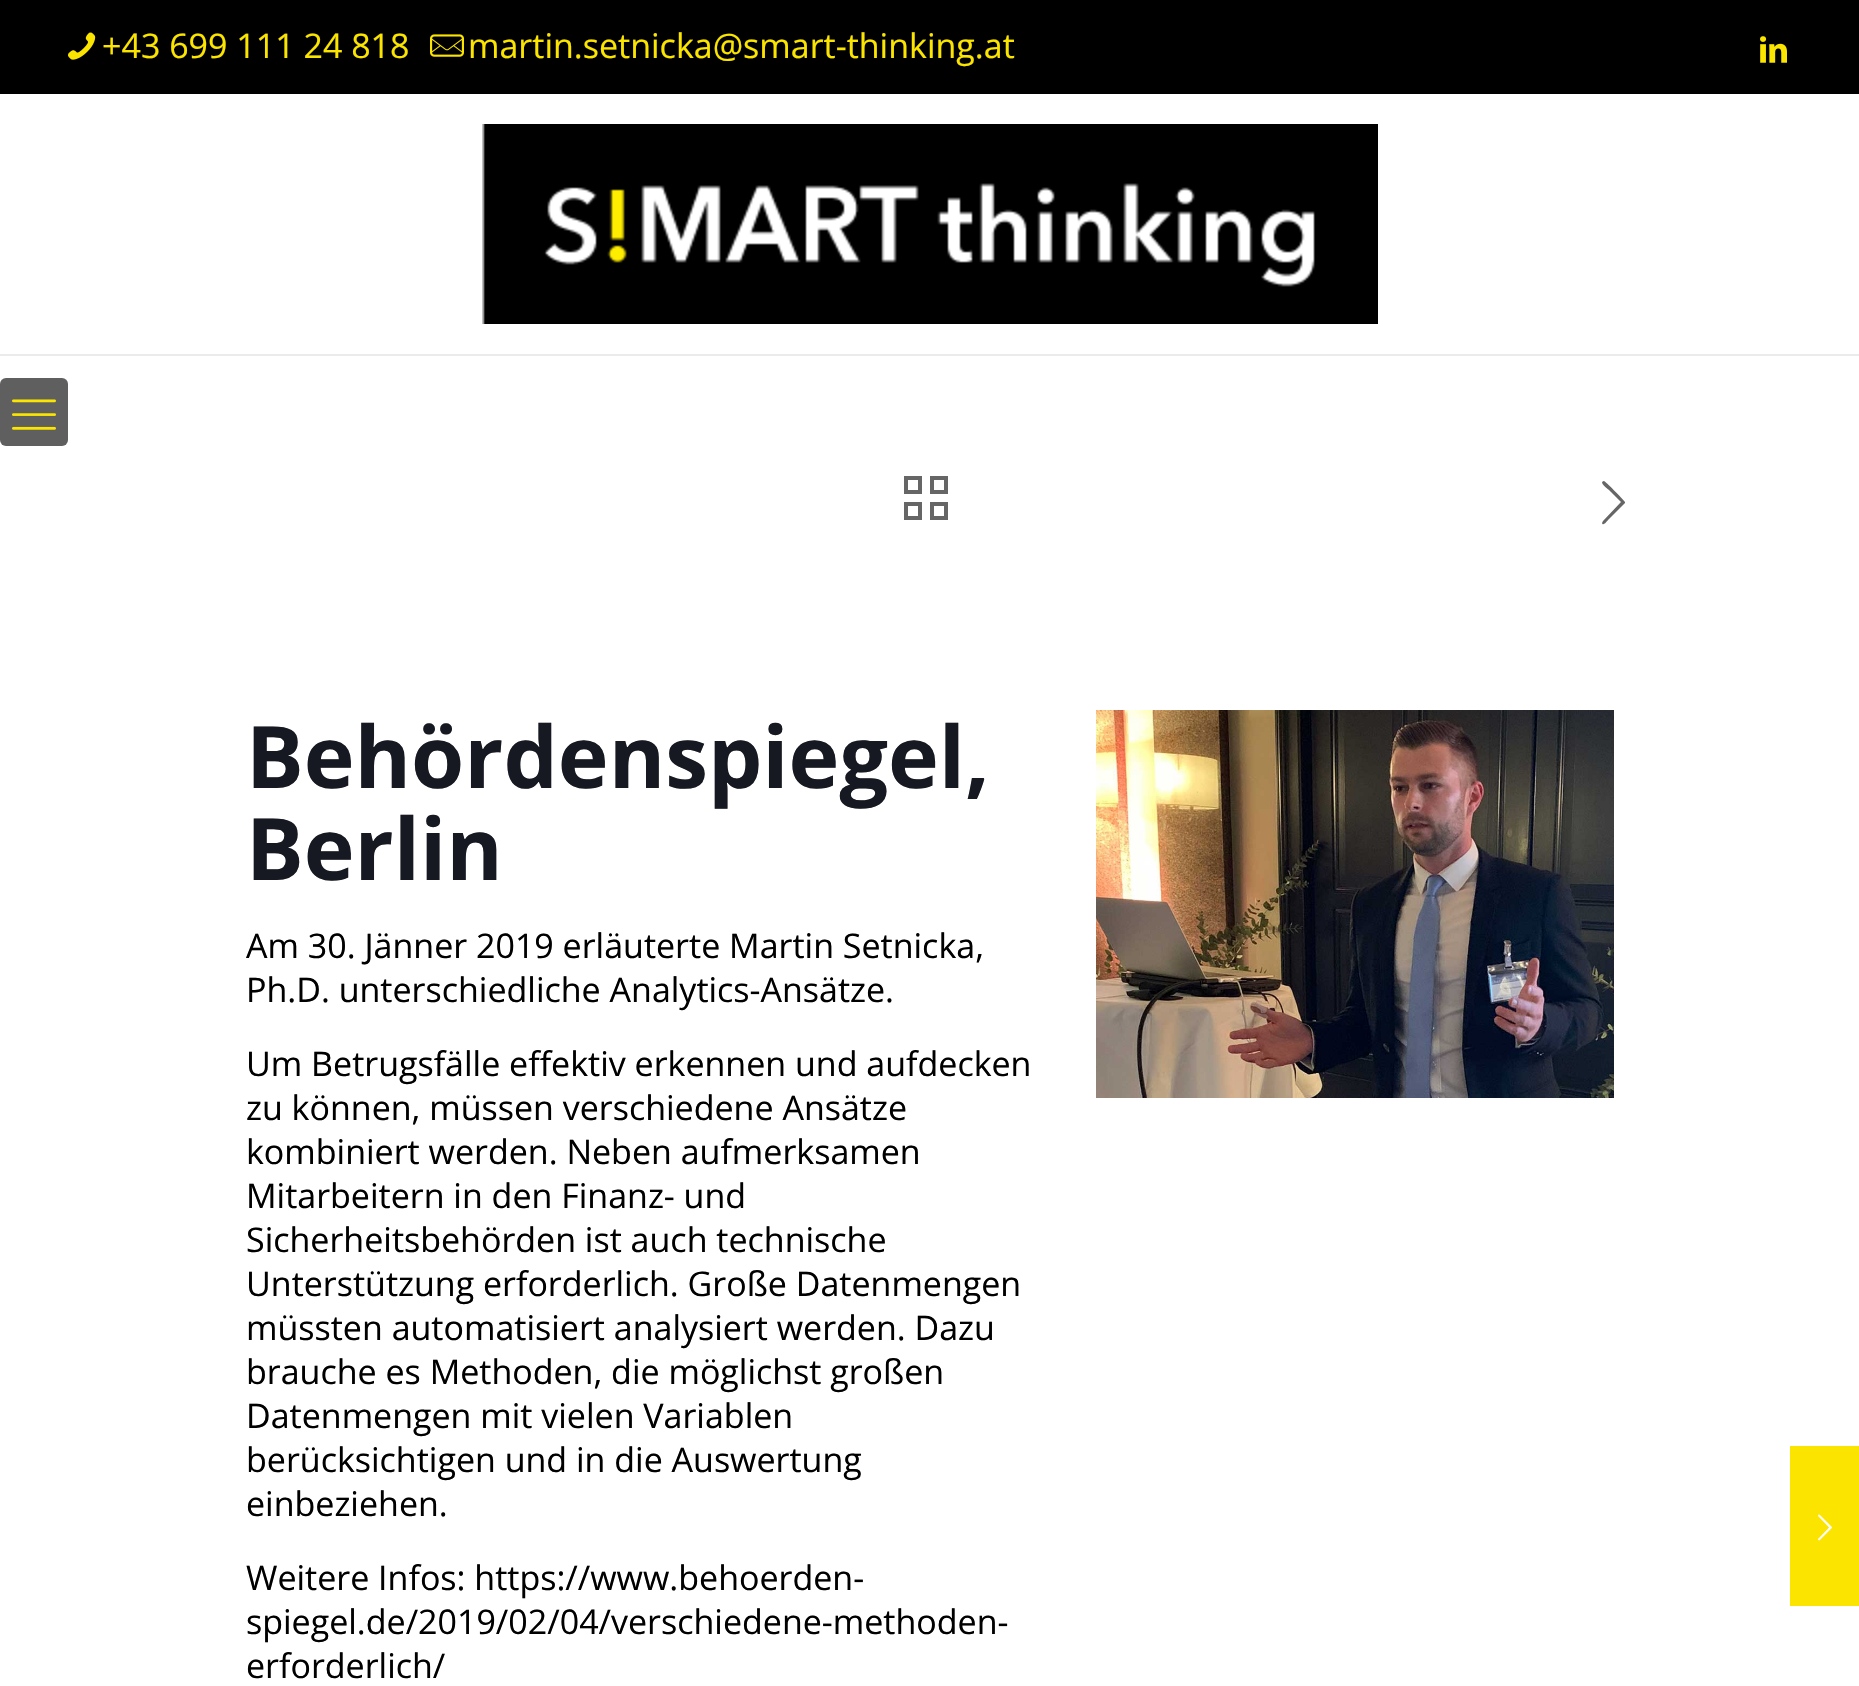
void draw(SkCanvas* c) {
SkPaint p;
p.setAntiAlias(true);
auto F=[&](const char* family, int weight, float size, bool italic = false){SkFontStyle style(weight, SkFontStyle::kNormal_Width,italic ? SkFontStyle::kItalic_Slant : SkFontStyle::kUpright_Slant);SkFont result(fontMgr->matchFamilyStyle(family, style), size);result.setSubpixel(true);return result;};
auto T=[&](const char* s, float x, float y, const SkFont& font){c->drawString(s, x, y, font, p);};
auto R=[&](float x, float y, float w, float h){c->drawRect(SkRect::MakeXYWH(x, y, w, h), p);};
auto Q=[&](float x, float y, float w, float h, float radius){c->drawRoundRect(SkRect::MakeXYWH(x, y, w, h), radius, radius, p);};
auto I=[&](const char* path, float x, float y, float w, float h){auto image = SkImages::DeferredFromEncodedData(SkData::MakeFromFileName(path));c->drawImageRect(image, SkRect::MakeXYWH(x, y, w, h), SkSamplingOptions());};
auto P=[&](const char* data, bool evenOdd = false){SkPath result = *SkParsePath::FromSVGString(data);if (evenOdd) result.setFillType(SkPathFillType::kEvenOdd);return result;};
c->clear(0xffffffff);
p.setColor(0xff000000);
R(0,0,1859,94);
I("1.png",68,32,28,28);
auto f1 = F("Open Sans",400,34);
p.setColor(0xfffae400);
T("+43 699 111 24 818",102,58,f1);
I("2.png",430,34,34,23);
T("martin.setnicka@smart-thinking.at",468,58,f1);
I("3.png",1760,36,27,27);
p.setColor(0xffebebeb);
R(0,354,1859,2);
I("4.png",482,124,896,200);
p.setColor(0xff5f5f5f);
Q(0,378,68,68,6);
I("5.png",12,399,44,31);
I("6.png",904,476,44,44);
p.setColor(0xff666666);
c->drawPath(P("M1603 521l18-19l-12-12c-1-1-11-8-5-9c1 0 19 18 21 21v1l-17 17c0 0-5 7-6 3z"),p);
auto f2 = F("Open Sans",700,86);
p.setColor(0xff161922);
T("Behördenspiegel,",246,788,f2);
T("Berlin",246,880,f2);
p.setColor(0xff000000);
T("Am 30. Jänner 2019 erläuterte Martin Setnicka,",246,958,f1);
T("Ph.D. unterschiedliche Analytics-Ansätze.",246,1002,f1);
T("Um Betrugsfälle effektiv erkennen und aufdecken",246,1076,f1);
T("zu können, müssen verschiedene Ansätze",246,1120,f1);
T("kombiniert werden. Neben aufmerksamen",246,1164,f1);
T("Mitarbeitern in den Finanz- und",246,1208,f1);
T("Sicherheitsbehörden ist auch technische",246,1252,f1);
T("Unterstützung erforderlich. Große Datenmengen",246,1296,f1);
T("müssten automatisiert analysiert werden. Dazu",246,1340,f1);
T("brauche es Methoden, die möglichst großen",246,1384,f1);
T("Datenmengen mit vielen Variablen",246,1428,f1);
T("berücksichtigen und in die Auswertung",246,1472,f1);
T("einbeziehen.",246,1516,f1);
T("Weitere Infos: https://www.behoerden-",246,1590,f1);
T("spiegel.de/2019/02/04/verschiedene-methoden-",246,1634,f1);
T("erforderlich/",246,1678,f1);
I("7.png",1096,710,518,388);
p.setColor(0xfffae400);
R(1790,1446,69,160);
I("8.png",1818,1514,14,27);
}
